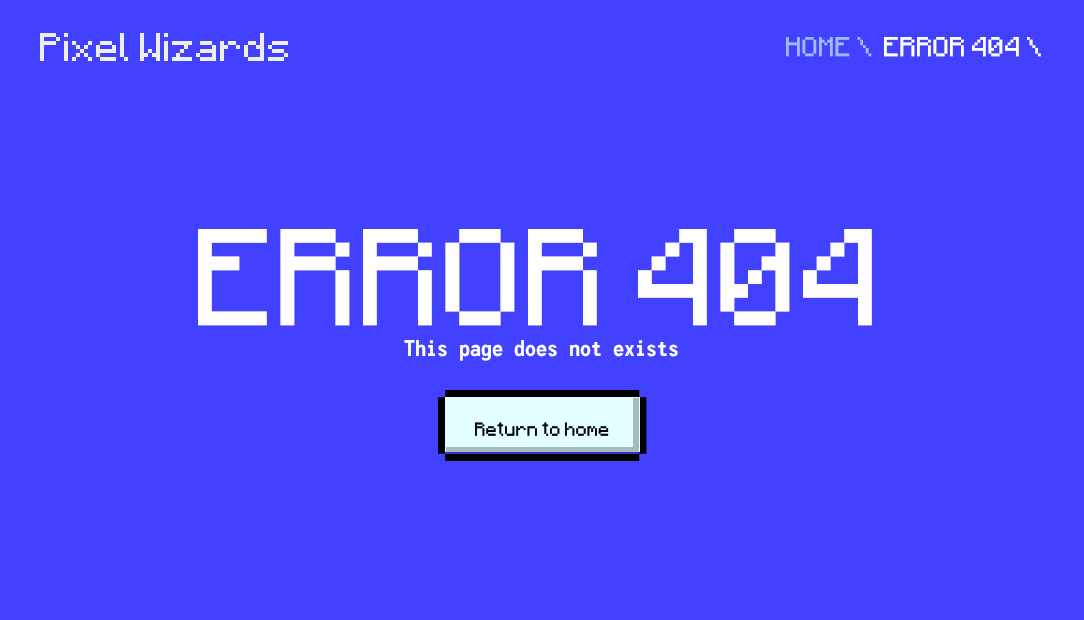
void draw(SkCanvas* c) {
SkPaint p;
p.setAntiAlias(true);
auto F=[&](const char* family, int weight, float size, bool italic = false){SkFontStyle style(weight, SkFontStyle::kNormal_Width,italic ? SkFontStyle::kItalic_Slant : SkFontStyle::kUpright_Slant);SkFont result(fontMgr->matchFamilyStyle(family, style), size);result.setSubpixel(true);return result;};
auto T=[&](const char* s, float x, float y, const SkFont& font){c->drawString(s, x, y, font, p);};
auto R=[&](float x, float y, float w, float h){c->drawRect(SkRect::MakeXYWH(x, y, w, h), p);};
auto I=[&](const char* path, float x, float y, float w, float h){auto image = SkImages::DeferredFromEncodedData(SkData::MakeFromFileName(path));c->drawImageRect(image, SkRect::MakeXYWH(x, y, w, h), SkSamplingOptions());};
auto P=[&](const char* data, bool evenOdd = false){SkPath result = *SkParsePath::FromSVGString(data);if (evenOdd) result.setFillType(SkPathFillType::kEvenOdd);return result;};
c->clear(0xff4141ff);
auto f1 = F("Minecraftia",400,32);
p.setColor(0xffeeeeee);
T("Pixel Wizards",40,81,f1);
auto f2 = F("Minecraftia",400,22);
p.setColor(0xffa2bafb);
T("HOME \\",786,70,f2);
p.setColor(0xffffffff);
T("ERROR 404 \\",884,70,f2);
auto f3 = F("Minecraftia",400,110);
T("ERROR 404",198,394,f3);
auto f4 = F("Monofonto",400,22);
T("This page does not exists",404,356,f4);
I("1.png",438,390,209,71);
p.setColor(0xffe3ffff);
R(445,397,195,55);
auto f5 = F("Minecraftia",400,15);
p.setColor(0xff000000);
T("Return to home",475,445,f5);
c->save();
c->clipRect(SkRect::MakeXYWH(446,398,193,55));
p.setColor(0x45000000);
c->drawPath(P("M347 299h391v253h-391zm93 93h193v55h-193z",true),p);
c->restore();
}
